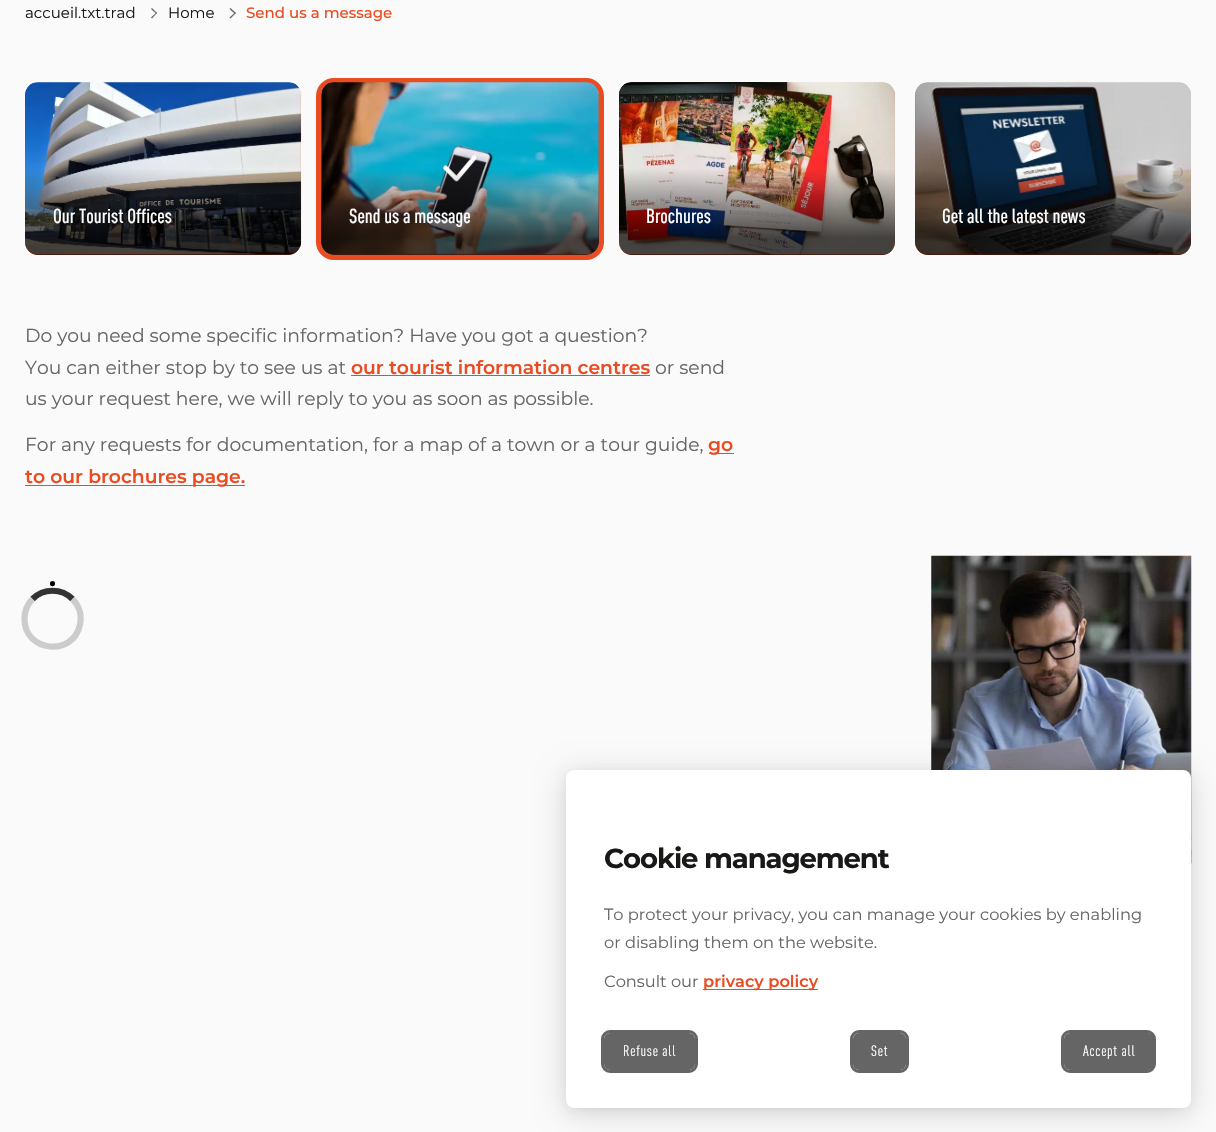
void draw(SkCanvas* c) {
SkPaint p;
p.setAntiAlias(true);
auto F=[&](const char* family, int weight, float size, bool italic = false){SkFontStyle style(weight, SkFontStyle::kNormal_Width,italic ? SkFontStyle::kItalic_Slant : SkFontStyle::kUpright_Slant);SkFont result(fontMgr->matchFamilyStyle(family, style), size);result.setSubpixel(true);return result;};
auto T=[&](const char* s, float x, float y, const SkFont& font){c->drawString(s, x, y, font, p);};
auto L=[&](const char* s, float x, float y, const SkFont& font, const SkPaint& ink, float letter, float word){std::vector<SkGlyphID> glyphs(font.countText(s, strlen(s), SkTextEncoding::kUTF8));std::vector<float> xs(glyphs.size());font.textToGlyphs(s, strlen(s), SkTextEncoding::kUTF8, glyphs);font.getXPos(glyphs, xs, x);float extra = 0;for (size_t i = 0; i < glyphs.size(); i++) {xs[i] += extra;extra += letter + word * (glyphs[i] == font.unicharToGlyph(' '));}c->drawTextBlob(SkTextBlob::MakeFromPosHGlyphs(glyphs, xs, y, font), 0, 0, ink);};
auto R=[&](float x, float y, float w, float h){c->drawRect(SkRect::MakeXYWH(x, y, w, h), p);};
auto Q=[&](float x, float y, float w, float h, float radius){c->drawRoundRect(SkRect::MakeXYWH(x, y, w, h), radius, radius, p);};
auto I=[&](const char* path, float x, float y, float w, float h){auto image = SkImages::DeferredFromEncodedData(SkData::MakeFromFileName(path));c->drawImageRect(image, SkRect::MakeXYWH(x, y, w, h), SkSamplingOptions());};
auto P=[&](const char* data, bool evenOdd = false){SkPath result = *SkParsePath::FromSVGString(data);if (evenOdd) result.setFillType(SkPathFillType::kEvenOdd);return result;};
c->clear(0xfffafafa);
auto f1 = F("Montserrat",400,15);
p.setColor(0xff181816);
T("accueil.txt.trad",25,18,f1);
p.setColor(0xff656565);
c->drawPath(P("M151 9l1-1l5 5l-.5 1z"),p);
c->drawPath(P("M151 17.5l5.5-5l.5 .5l-5 5.5z"),p);
p.setColor(0xff181816);
T("Home",168,18,f1);
p.setColor(0xff656565);
c->drawPath(P("M229.5 9l1-1l5.5 5l-1 1z"),p);
c->drawPath(P("M229.5 17.5l5.5-5l1 .5l-5.5 5.5z"),p);
auto f2 = F("Montserrat",500,15);
p.setColor(0xffe94c21);
T("Send us a message",246,18,f2);
Q(25,83,276,172,13);
I("1.png",25,82,277,173);
{
const SkColor colors[] = {0xb3000000,0x00000000};
const float stops[] = {.2,1};
const SkPoint ends[] = {{163,255}, {163,169}};
p.setShader(SkGradientShader::MakeLinear(ends, colors, stops, 2, SkTileMode::kClamp));
p.setAlpha(255);
}
c->drawPath(P("M25 169h276v73c0 7-6 13-13 13h-250c-7 0-13-6-13-13z"),p);
auto f3 = F("DIN",500,20);
p.setShader(nullptr);
p.setColor(0xffffffff);
T("Our Tourist Offices",53,223,f3);
p.setStroke(true);
p.setStrokeWidth(5);
p.setColor(0xffe94c21);
c->drawRoundRect(SkRect::MakeXYWH(318.5,80.5,283,177),15.5,15.5,p);
p.setStroke(false);
Q(321,83,278,172,13);
I("2.png",321,82,278,173);
I("3.png",443,155,34,27);
{
const SkColor colors[] = {0xb3000000,0x00000000};
const float stops[] = {.2,1};
const SkPoint ends[] = {{460,255}, {460,169}};
p.setShader(SkGradientShader::MakeLinear(ends, colors, stops, 2, SkTileMode::kClamp));
p.setAlpha(255);
}
c->drawPath(P("M321 169h278v73c0 7-6 13-13 13h-252c-7 0-13-6-13-13z"),p);
p.setShader(nullptr);
p.setColor(0xffffffff);
T("Send us a message",349,223,f3);
p.setColor(0xffe94c21);
Q(619,83,276,172,13);
I("4.png",619,82,276,173);
{
const SkColor colors[] = {0xb3000000,0x00000000};
const float stops[] = {.2,1};
const SkPoint ends[] = {{757,255}, {757,169}};
p.setShader(SkGradientShader::MakeLinear(ends, colors, stops, 2, SkTileMode::kClamp));
p.setAlpha(255);
}
c->drawPath(P("M619 169h276v73c0 7-6 13-13 13h-250c-7 0-13-6-13-13z"),p);
p.setShader(nullptr);
p.setColor(0xffffffff);
T("Brochures",646,223,f3);
p.setColor(0xffe94c21);
Q(915,83,276,172,13);
I("5.png",915,82,276,173);
{
const SkColor colors[] = {0xb3000000,0x00000000};
const float stops[] = {.2,1};
const SkPoint ends[] = {{1053,255}, {1053,169}};
p.setShader(SkGradientShader::MakeLinear(ends, colors, stops, 2, SkTileMode::kClamp));
p.setAlpha(255);
}
c->drawPath(P("M915 169h276v73c0 7-6 13-13 13h-250c-7 0-13-6-13-13z"),p);
p.setShader(nullptr);
p.setColor(0xffffffff);
T("Get all the latest news",942,223,f3);
auto f4 = F("Montserrat",400,18.75);
p.setColor(0xff656565);
T("Do you need some specific information? Have you got a question?",25,342,f4);
T("You can either stop by to see us at",25,374,f4);
auto f5 = F("Montserrat",600,18.75);
p.setColor(0xffe94c21);
T("our tourist information centres",351,374,f5);
R(351,375,299,1);
p.setColor(0xff656565);
T("or send",655,374,f4);
T("us your request here, we will reply to you as soon as possible.",25,405,f4);
T("For any requests for documentation, for a map of a town or a tour guide,",25,451,f4);
p.setColor(0xffe94c21);
R(709,453,25,1);
T("go",708,451,f5);
R(25,485,220,1);
T("to our brochures page.",25,483,f5);
p.setStroke(true);
p.setStrokeWidth(2.5);
p.setColor(0xff000000);
c->drawCircle(52.5,583.8,1.2,p);
c->drawCircle(52.5,583.8,1.2,p);
p.setStrokeWidth(6.2);
p.setColor(0xff333333);
c->drawPath(P("M32.5 599c11-11 29-11 40 0"),p);
p.setColor(0xffcccccc);
c->drawPath(P("M72.5 599c6.5 6.5 9.5 16 7.5 25.5c-6.5 32.5-55.5 28-55.5-5.5c0-7.5 3-15 8-20"),p);
I("6.png",931,555,261,309);
p.setStroke(false);
p.setColor(0x0d000000);
p.setMaskFilter(SkMaskFilter::MakeBlur(kNormal_SkBlurStyle, 4));
c->drawRoundRect(SkRect::MakeXYWH(566,773,625,337),8,8,p);
p.setMaskFilter(nullptr);
p.setColor(0x26000000);
p.setMaskFilter(SkMaskFilter::MakeBlur(kNormal_SkBlurStyle, 15));
c->drawRoundRect(SkRect::MakeXYWH(566,775,625,338),8,8,p);
p.setMaskFilter(nullptr);
p.setColor(0xffffffff);
Q(566,770,625,338,8);
auto f6 = F("Montserrat",700,27.5);
p.setColor(0xff181816);
L("Cookie management",604,868,f6,p,-1.1,0);
auto f7 = F("Montserrat",400,16.25);
p.setColor(0xff656565);
T("To protect your privacy, you can manage your cookies by enabling",604,920,f7);
T("or disabling them on the website.",604,948,f7);
T("Consult our",604,987,f7);
p.setColor(0xffe94c21);
R(703,989,115,1);
auto f8 = F("Montserrat",600,16.25);
T("privacy policy",703,987,f8);
p.setStroke(true);
p.setStrokeWidth(3);
p.setColor(0xff656565);
c->drawRoundRect(SkRect::MakeXYWH(602.5,1031.5,94,40),7.5,7.5,p);
p.setStroke(false);
Q(604,1033,91,37,6);
auto f9 = F("DIN",400,15);
p.setColor(0xffffffff);
L("Refuse all",623,1056,f9,p,.75,0);
p.setStroke(true);
p.setColor(0xff656565);
c->drawRoundRect(SkRect::MakeXYWH(851.5,1031.5,56,40),7.5,7.5,p);
p.setStroke(false);
Q(853,1033,53,37,6);
p.setColor(0xffffffff);
L("Set",871,1056,f9,p,.75,0);
p.setStroke(true);
p.setColor(0xff656565);
c->drawRoundRect(SkRect::MakeXYWH(1062.5,1031.5,92,40),7.5,7.5,p);
p.setStroke(false);
Q(1064,1033,90,37,6);
p.setColor(0xffffffff);
L("Accept all",1083,1056,f9,p,.75,0);
}
